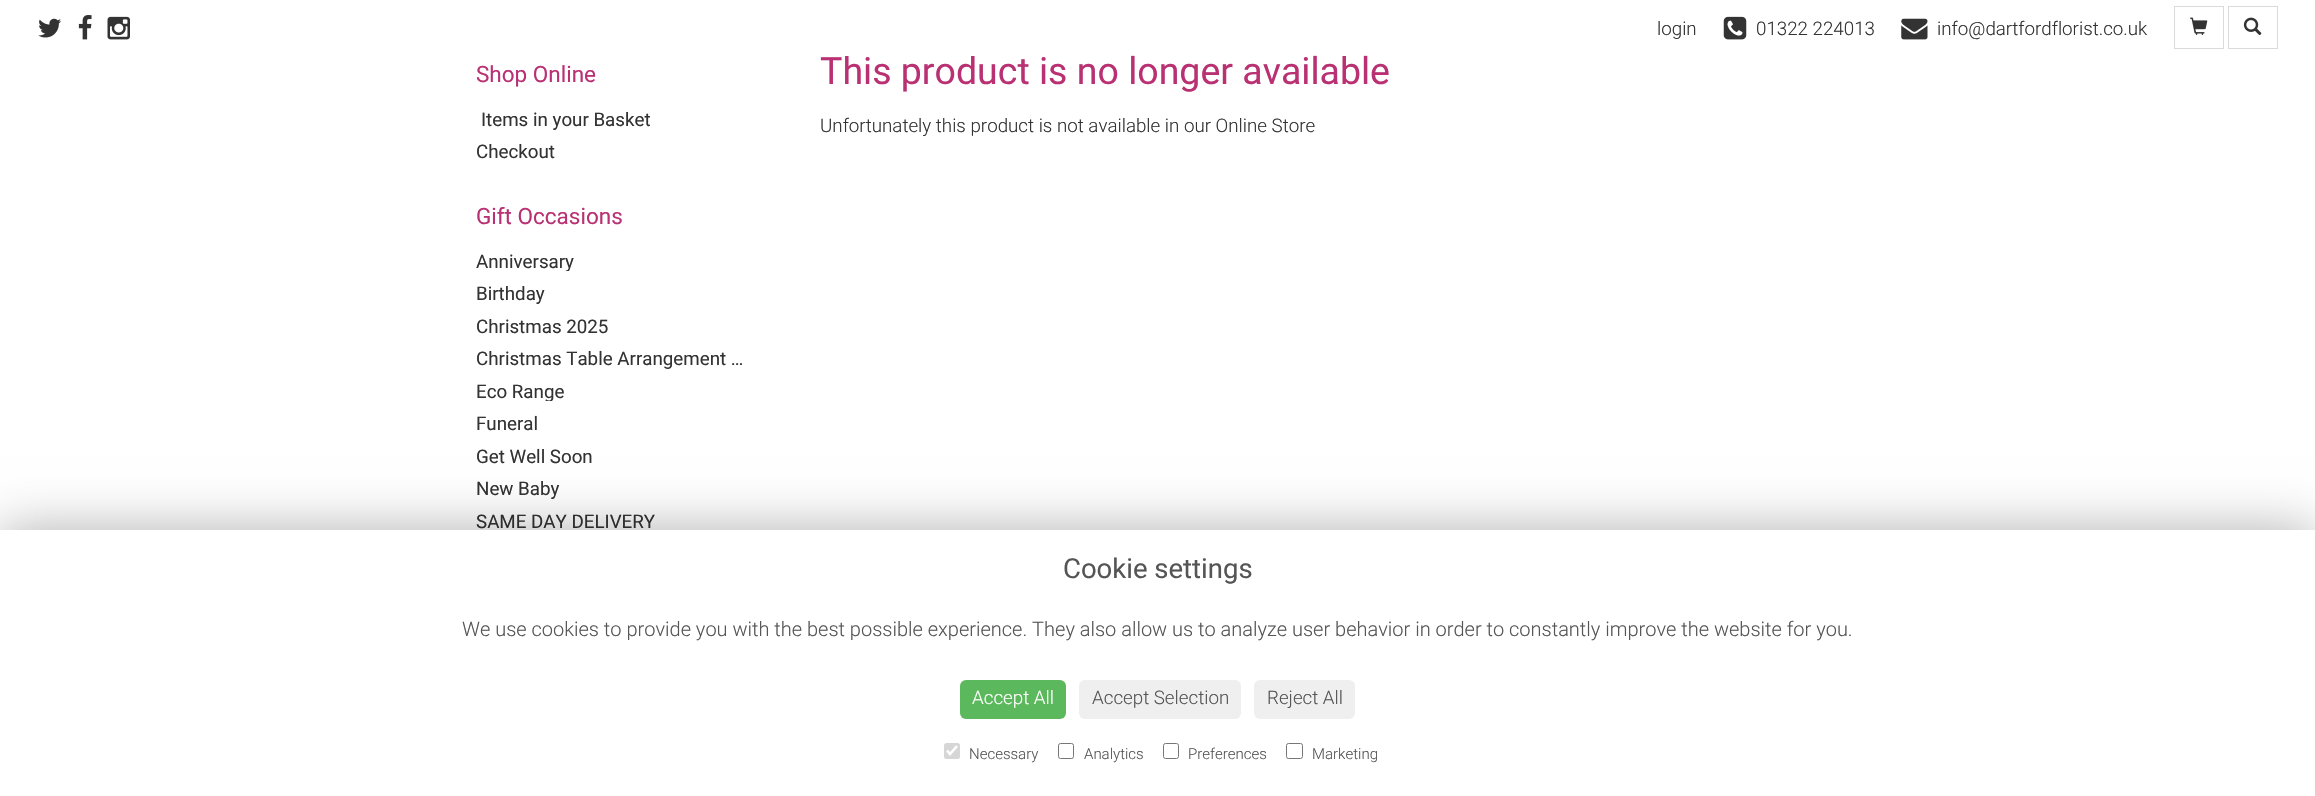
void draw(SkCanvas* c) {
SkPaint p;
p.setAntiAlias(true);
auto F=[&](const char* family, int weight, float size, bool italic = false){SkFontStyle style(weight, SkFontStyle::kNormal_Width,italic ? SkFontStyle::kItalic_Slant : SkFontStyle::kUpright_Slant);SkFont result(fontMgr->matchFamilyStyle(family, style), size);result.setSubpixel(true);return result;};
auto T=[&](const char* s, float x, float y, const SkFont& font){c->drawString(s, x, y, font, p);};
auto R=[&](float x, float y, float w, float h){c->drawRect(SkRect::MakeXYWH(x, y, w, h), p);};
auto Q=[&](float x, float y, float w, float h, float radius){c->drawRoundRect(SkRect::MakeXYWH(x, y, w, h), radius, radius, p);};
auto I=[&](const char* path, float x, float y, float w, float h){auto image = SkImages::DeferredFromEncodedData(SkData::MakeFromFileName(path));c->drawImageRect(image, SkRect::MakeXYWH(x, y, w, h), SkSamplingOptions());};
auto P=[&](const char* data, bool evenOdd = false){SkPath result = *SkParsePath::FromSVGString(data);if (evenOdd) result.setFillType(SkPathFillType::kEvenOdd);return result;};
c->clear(0xffffffff);
I("1.png",38,18,24,20);
I("2.png",78,15,14,25);
I("3.png",107,16,23,24);
auto f1 = F("Roboto",300,18.75);
p.setColor(0xff333333);
T("login",1657,35,f1);
I("4.png",1723,16,24,24);
T("01322 224013",1756,35,f1);
I("5.png",1901,18,27,22);
T("info@dartfordflorist.co.uk",1937,35,f1);
p.setStroke(true);
p.setStrokeWidth(1);
p.setColor(0xffdadada);
c->drawRect(SkRect::MakeXYWH(2174.5,6.5,49,42),p);
I("6.png",2190,17,18,18);
c->drawRect(SkRect::MakeXYWH(2228.5,6.5,49,42),p);
I("7.png",2243,17,19,19);
auto f2 = F("Roboto",400,22.5);
p.setStroke(false);
p.setColor(0xffb93173);
T("Shop Online",476,82,f2);
auto f3 = F("Roboto",400,18.75);
p.setColor(0xff333333);
T("Items in your Basket",481,126,f3);
T("Checkout",476,158,f3);
p.setColor(0xffb93173);
T("Gift Occasions",476,224,f2);
c->save();
c->clipRect(SkRect::MakeXYWH(476,251,279,20));
p.setColor(0xff333333);
T("Anniversary",476,268,f3);
c->restore();
T("Birthday",476,300,f3);
T("Christmas 2025",476,333,f3);
T("Christmas Table Arrangement …",476,365,f3);
c->save();
c->clipRect(SkRect::MakeXYWH(476,381,279,20));
T("Eco Range",476,398,f3);
c->restore();
T("Funeral",476,430,f3);
T("Get Well Soon",476,463,f3);
T("New Baby",476,495,f3);
T("SAME DAY DELIVERY",476,528,f3);
auto f4 = F("Roboto",400,37.5);
p.setColor(0xffb93173);
T("This product is no longer available",820,84,f4);
p.setColor(0xff333333);
T("Unfortunately this product is not available in our Online Store",820,132,f1);
p.setColor(0x4f000000);
p.setMaskFilter(SkMaskFilter::MakeBlur(kNormal_SkBlurStyle, 25));
c->drawRect(SkRect::MakeXYWH(0,530,2315,266),p);
p.setMaskFilter(nullptr);
p.setColor(0xffffffff);
R(0,530,2315,266);
auto f5 = F("Roboto",400,27.5);
p.setColor(0xff555555);
T("Cookie settings",1063,578,f5);
auto f6 = F("Roboto",300,20);
T("We use cookies to provide you with the best possible experience. They also allow us to analyze user behavior in order to constantly improve the website for you.",462,636,f6);
p.setColor(0xff5cb85c);
Q(960,680,106,39,6);
p.setColor(0xffffffff);
T("Accept All",972,704,f1);
p.setColor(0xffefefef);
Q(1079,680,162,39,6);
p.setColor(0xff555555);
T("Accept Selection",1092,704,f1);
p.setColor(0xffefefef);
Q(1254,680,101,39,6);
p.setColor(0xff555555);
T("Reject All",1267,704,f1);
p.setColor(0xffd6d6d6);
Q(944,743,16,16,2.5);
p.setStroke(true);
p.setStrokeWidth(2.6);
p.setColor(0xffffffff);
c->drawPath(P("M947 750.5l3 3.5l7-8"),p);
auto f7 = F("Roboto",300,15);
p.setStroke(false);
p.setColor(0xff555555);
T("Necessary",969,759,f7);
p.setStroke(true);
p.setStrokeWidth(1);
p.setColor(0xff767676);
c->drawRoundRect(SkRect::MakeXYWH(1058.5,743.5,15,15),2,2,p);
p.setStroke(false);
p.setColor(0xff555555);
T("Analytics",1084,759,f7);
p.setStroke(true);
p.setColor(0xff767676);
c->drawRoundRect(SkRect::MakeXYWH(1163.5,743.5,15,15),2,2,p);
p.setStroke(false);
p.setColor(0xff555555);
T("Preferences",1188,759,f7);
p.setStroke(true);
p.setColor(0xff767676);
c->drawRoundRect(SkRect::MakeXYWH(1286.5,743.5,16,15),2,2,p);
p.setStroke(false);
p.setColor(0xff555555);
T("Marketing",1312,759,f7);
}
